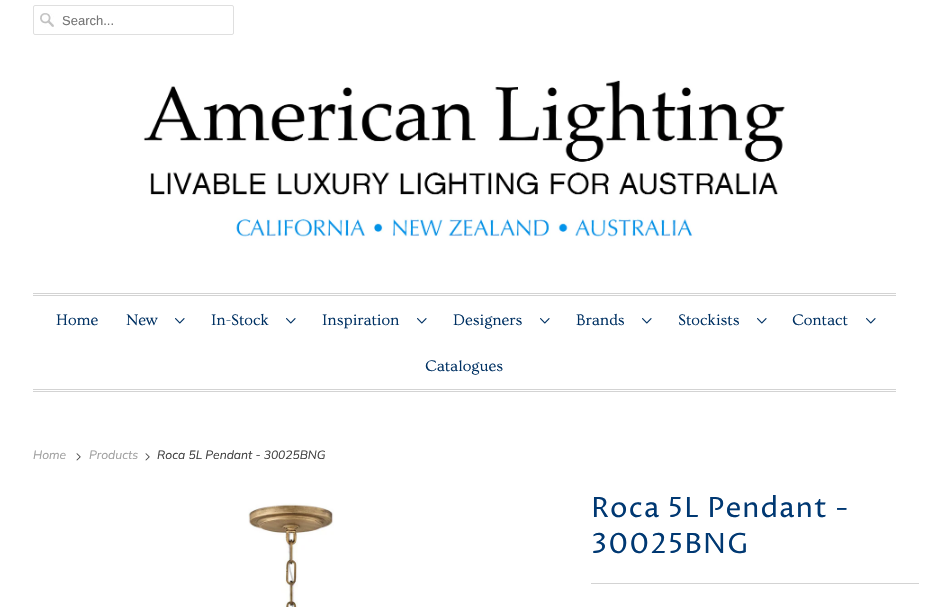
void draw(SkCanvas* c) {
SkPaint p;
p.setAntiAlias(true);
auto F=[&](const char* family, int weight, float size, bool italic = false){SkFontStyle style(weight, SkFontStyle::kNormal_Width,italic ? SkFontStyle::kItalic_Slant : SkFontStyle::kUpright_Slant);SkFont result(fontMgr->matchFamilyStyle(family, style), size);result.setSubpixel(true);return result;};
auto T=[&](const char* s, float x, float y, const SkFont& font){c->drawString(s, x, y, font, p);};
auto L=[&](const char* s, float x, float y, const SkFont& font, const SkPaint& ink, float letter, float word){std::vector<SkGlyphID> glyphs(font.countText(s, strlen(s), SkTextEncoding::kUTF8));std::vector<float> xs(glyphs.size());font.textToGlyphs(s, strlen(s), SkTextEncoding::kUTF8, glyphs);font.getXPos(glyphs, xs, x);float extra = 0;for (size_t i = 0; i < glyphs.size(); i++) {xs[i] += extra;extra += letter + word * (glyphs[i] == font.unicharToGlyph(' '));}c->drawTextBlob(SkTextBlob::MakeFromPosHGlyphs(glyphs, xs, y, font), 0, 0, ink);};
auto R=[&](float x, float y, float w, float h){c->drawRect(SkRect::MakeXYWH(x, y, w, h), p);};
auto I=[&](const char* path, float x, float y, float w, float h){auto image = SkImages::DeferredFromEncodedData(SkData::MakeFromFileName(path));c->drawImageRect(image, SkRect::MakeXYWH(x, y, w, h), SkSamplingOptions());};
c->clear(0xffffffff);
I("1.png",40,13,14,14);
p.setStroke(true);
p.setStrokeWidth(1);
p.setColor(0xffdfdfdf);
c->drawRoundRect(SkRect::MakeXYWH(33.5,5.5,200,29),1.5,1.5,p);
auto f1 = F("Liberation Sans",400,13);
p.setStroke(false);
p.setColor(0xff757575);
T("Search...",62,25,f1);
I("2.png",143,80,642,159);
p.setColor(0xffd3d3d3);
R(33,293,863,1);
R(33,295,863,1);
R(33,389,863,1);
R(33,391,863,1);
auto f2 = F("Ovo",400,16);
p.setColor(0xff003163);
T("Home",56,325,f2);
T("New",126,325,f2);
I("3.png",175,318,10,6);
T("In-Stock",211,325,f2);
I("3.png",286,318,10,6);
T("Inspiration",322,325,f2);
I("3.png",417,318,10,6);
T("Designers",453,325,f2);
I("3.png",540,318,10,6);
T("Brands",576,325,f2);
I("3.png",642,318,10,6);
T("Stockists",678,325,f2);
I("3.png",757,318,10,6);
T("Contact",792,325,f2);
I("3.png",866,318,10,6);
T("Catalogues",425,371,f2);
auto f3 = F("Muli",400,12,true);
p.setColor(0xff9f9f9f);
T("Home",33,459,f3);
I("4.png",76,453,5,8);
T("Products",89,459,f3);
I("4.png",145,453,5,8);
p.setColor(0xff404040);
T("Roca 5L Pendant - 30025BNG",157,459,f3);
I("5.png",248,503,86,104);
p.setColor(0xffd3d3d3);
R(591,583,328,1);
auto f4 = F("Proza Libre",400,28);
p.setColor(0xff003872);
L("Roca 5L Pendant -",591,517,f4,p,1,0);
L("30025BNG",591,553,f4,p,1,0);
}
